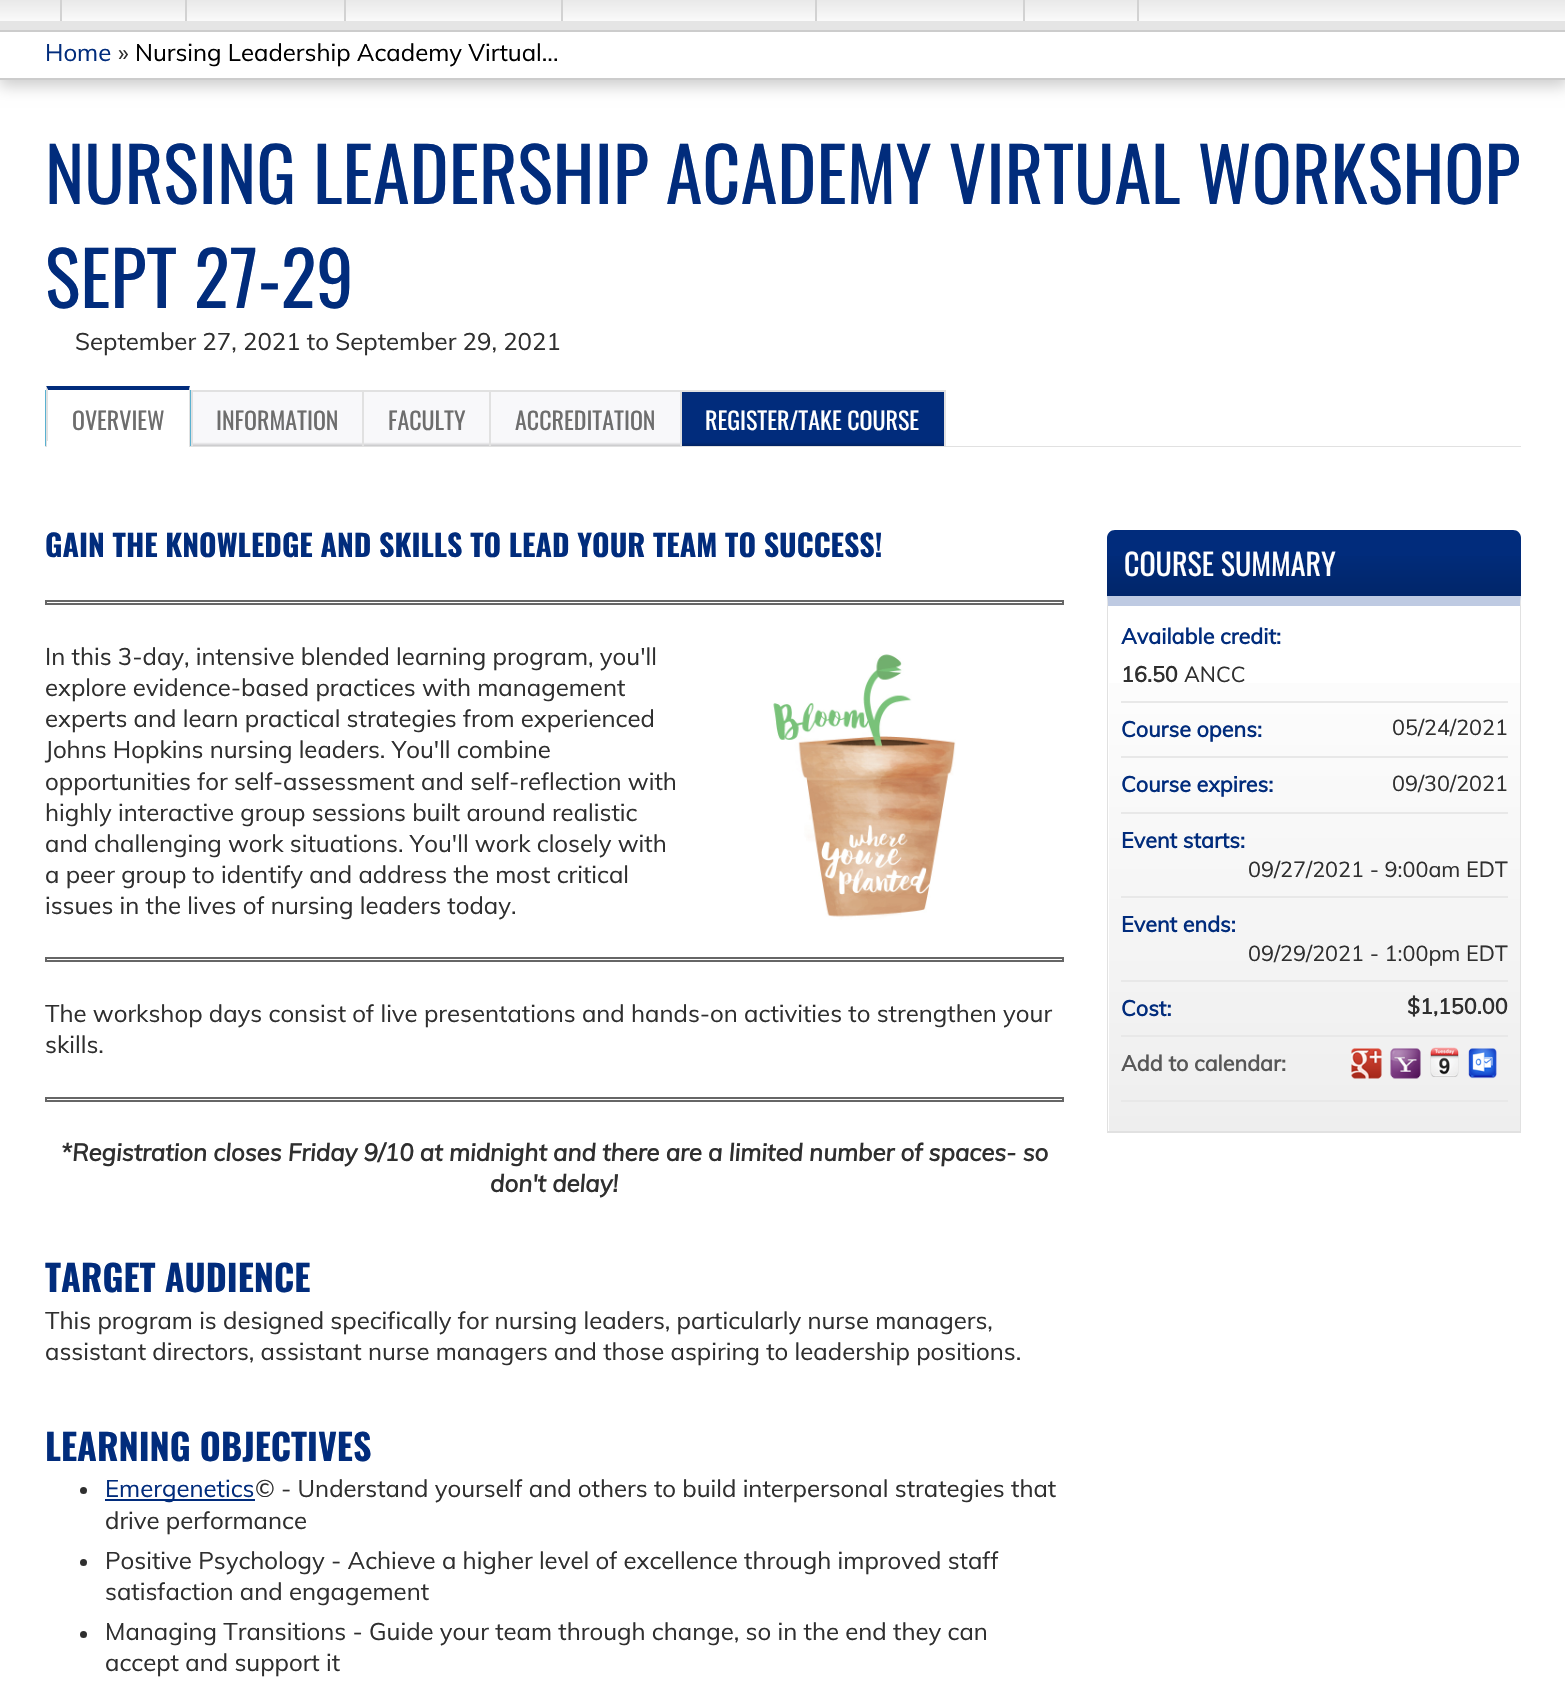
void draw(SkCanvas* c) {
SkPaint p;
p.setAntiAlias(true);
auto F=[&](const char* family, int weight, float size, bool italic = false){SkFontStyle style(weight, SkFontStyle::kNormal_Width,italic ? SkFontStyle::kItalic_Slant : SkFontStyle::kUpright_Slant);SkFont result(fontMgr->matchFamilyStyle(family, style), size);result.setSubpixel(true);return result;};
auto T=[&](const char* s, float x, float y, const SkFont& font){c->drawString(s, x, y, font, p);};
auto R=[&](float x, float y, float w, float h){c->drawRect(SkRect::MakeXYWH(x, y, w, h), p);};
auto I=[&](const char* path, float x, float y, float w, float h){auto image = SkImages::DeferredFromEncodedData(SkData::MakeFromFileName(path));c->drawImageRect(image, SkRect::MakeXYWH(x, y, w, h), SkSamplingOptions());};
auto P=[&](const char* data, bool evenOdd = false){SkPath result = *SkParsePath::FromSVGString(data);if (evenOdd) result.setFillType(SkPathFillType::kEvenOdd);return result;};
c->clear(0xffffffff);
p.setColor(0x33000000);
p.setMaskFilter(SkMaskFilter::MakeBlur(kNormal_SkBlurStyle, 7.5));
c->drawRect(SkRect::MakeXYWH(-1,33,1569,53),p);
p.setMaskFilter(nullptr);
{
const SkColor colors[] = {0xfffafafa,0xffe6e6e6,0xffe1e1e1,0xffe6e6e6,0xfffafafa};
const float stops[] = {0,.33,.5,.66,1};
const SkPoint ends[] = {{783,-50}, {783,21}};
p.setShader(SkGradientShader::MakeLinear(ends, colors, stops, 5, SkTileMode::kClamp));
p.setAlpha(255);
}
R(0,0,1565,21);
p.setShader(nullptr);
p.setColor(0xffe5e5e5);
R(0,21,1565,9);
p.setColor(0xffd2d2d2);
R(185,0,2,21);
R(60,0,2,21);
R(344,0,2,21);
R(561,0,2,21);
R(815,0,2,21);
R(1023,0,2,21);
R(1137,0,2,21);
p.setColor(0xffffffff);
R(0,32,1565,46);
p.setColor(0xffcccccc);
R(0,30,1565,2);
R(0,78,1565,2);
auto f1 = F("Muli",400,24);
p.setColor(0xff012c7c);
T("Home",45,61,f1);
p.setColor(0xff2f2f2f);
T("»",118,61,f1);
p.setColor(0xff000000);
T("Nursing Leadership Academy Virtual...",135,61,f1);
auto f2 = F("Oswald",400,74.4);
p.setColor(0xff012c7c);
T("NURSING LEADERSHIP ACADEMY VIRTUAL WORKSHOP",45,204,f2);
T("SEPT 27-29",45,308,f2);
p.setColor(0xff2f2f2f);
T("September 27, 2021 to September 29, 2021",75,350,f1);
p.setColor(0xffe1e1e1);
R(45,446,1476,1);
p.setColor(0xff5ab1d0);
R(190,390,1,56);
R(45,390,1,56);
p.setColor(0xff012c7c);
c->drawPath(P("M46 386h144l-1 4h-141z"),p);
p.setColor(0xffe1e1e1);
c->drawPath(P("M190 386v60h-1v-56z"),p);
c->drawPath(P("M46 446v-60l2 4v56z"),p);
auto f3 = F("Oswald",400,24);
p.setColor(0xff6d6d6d);
T("OVERVIEW",72,430,f3);
p.setColor(0xffffffff);
R(47,441,142,6);
{
const SkColor colors[] = {0xffc6c6c8,0xfff8f8fa};
const float stops[] = {0,.07};
const SkPoint ends[] = {{277,446}, {277,392}};
p.setShader(SkGradientShader::MakeLinear(ends, colors, stops, 2, SkTileMode::kClamp));
p.setAlpha(255);
}
R(193,392,169,54);
p.setShader(nullptr);
p.setColor(0xffe1e1e1);
R(191,390,300,2);
R(191,390,2,56);
p.setColor(0xff6d6d6d);
T("INFORMATION",216,430,f3);
{
const SkColor colors[] = {0xffc6c6c8,0xfff8f8fa};
const float stops[] = {0,.07};
const SkPoint ends[] = {{426,446}, {426,392}};
p.setShader(SkGradientShader::MakeLinear(ends, colors, stops, 2, SkTileMode::kClamp));
p.setAlpha(255);
}
R(364,392,125,54);
p.setShader(nullptr);
p.setColor(0xffe1e1e1);
R(489,390,2,56);
R(362,390,2,56);
p.setColor(0xff6d6d6d);
T("FACULTY",388,430,f3);
{
const SkColor colors[] = {0xffc6c6c8,0xfff8f8fa};
const float stops[] = {0,.07};
const SkPoint ends[] = {{585,446}, {585,392}};
p.setShader(SkGradientShader::MakeLinear(ends, colors, stops, 2, SkTileMode::kClamp));
p.setAlpha(255);
}
R(491,392,189,54);
p.setShader(nullptr);
p.setColor(0xffe1e1e1);
R(489,390,456,2);
p.setColor(0xff6d6d6d);
T("ACCREDITATION",515,430,f3);
{
const SkColor colors[] = {0xff012363,0xff012c7c};
const float stops[] = {0,.07};
const SkPoint ends[] = {{812,446}, {812,392}};
p.setShader(SkGradientShader::MakeLinear(ends, colors, stops, 2, SkTileMode::kClamp));
p.setAlpha(255);
}
R(682,392,262,54);
p.setShader(nullptr);
p.setColor(0xffe1e1e1);
R(944,390,2,56);
R(680,390,2,56);
p.setColor(0xffffffff);
T("REGISTER/TAKE COURSE",705,430,f3);
auto f4 = F("Oswald",700,30);
p.setColor(0xff012c7c);
T("GAIN THE KNOWLEDGE AND SKILLS TO LEAD YOUR TEAM TO SUCCESS!",45,557,f4);
p.setStroke(true);
p.setStrokeWidth(2);
p.setColor(0xff666666);
c->drawRect(SkRect::MakeXYWH(46,601,1017,3),p);
p.setStroke(false);
p.setColor(0xff2f2f2f);
T("In this 3-day, intensive blended learning program, you'll",45,665,f1);
T("explore evidence-based practices with management",45,696,f1);
T("experts and learn practical strategies from experienced",45,727,f1);
T("Johns Hopkins nursing leaders. You'll combine",45,758,f1);
T("opportunities for self-assessment and self-reflection with",45,790,f1);
T("highly interactive group sessions built around realistic",45,821,f1);
T("and challenging work situations. You'll work closely with",45,852,f1);
T("a peer group to identify and address the most critical",45,883,f1);
T("issues in the lives of nursing leaders today.",45,914,f1);
I("1.png",773,654,183,266);
p.setStroke(true);
p.setColor(0xff666666);
c->drawRect(SkRect::MakeXYWH(46,958,1017,3),p);
p.setStroke(false);
p.setColor(0xff2f2f2f);
T("The workshop days consist of live presentations and hands-on activities to strengthen your",45,1022,f1);
T("skills.",45,1053,f1);
p.setStroke(true);
p.setColor(0xff666666);
c->drawRect(SkRect::MakeXYWH(46,1098,1017,3),p);
auto f5 = F("Muli",700,24,true);
p.setStroke(false);
p.setColor(0xff2f2f2f);
T("*Registration closes Friday 9/10 at midnight and there are a limited number of spaces- so",61,1161,f5);
T("don't delay!",490,1192,f5);
auto f6 = F("Oswald",700,36);
p.setColor(0xff012c7c);
T("TARGET AUDIENCE",45,1292,f6);
p.setColor(0xff2f2f2f);
T("This program is designed specifically for nursing leaders, particularly nurse managers,",45,1329,f1);
T("assistant directors, assistant nurse managers and those aspiring to leadership positions.",45,1360,f1);
p.setColor(0xff012c7c);
T("LEARNING OBJECTIVES",45,1461,f6);
p.setColor(0xff2f2f2f);
c->drawCircle(83.5,1490.5,3.5,p);
p.setColor(0xff012c7c);
R(105,1499,150,2);
T("Emergenetics",105,1497,f1);
p.setColor(0xff2f2f2f);
T("© - Understand yourself and others to build interpersonal strategies that",255,1497,f1);
T("drive performance",105,1529,f1);
c->drawCircle(83.5,1562.5,3.5,p);
T("Positive Psychology - Achieve a higher level of excellence through improved staff",105,1569,f1);
T("satisfaction and engagement",105,1600,f1);
c->drawCircle(83.5,1634.5,3.5,p);
T("Managing Transitions - Guide your team through change, so in the end they can",105,1640,f1);
T("accept and support it",105,1671,f1);
p.setColor(0xff012c7c);
c->drawPath(P("M1115 530h398c4.5 0 8 3.5 8 8v58h-414v-58c0-4.5 3.5-8 8-8z"),p);
{
const SkColor colors[] = {0x26000000,0x00000000};
const float stops[] = {0,.7};
const SkPoint ends[] = {{1314,596}, {1314,530}};
p.setShader(SkGradientShader::MakeLinear(ends, colors, stops, 2, SkTileMode::kClamp));
p.setAlpha(255);
}
R(1107,556,414,40);
auto f7 = F("Oswald",400,30);
p.setShader(nullptr);
p.setColor(0xffffffff);
T("COURSE SUMMARY",1124,576,f7);
{
const SkColor colors[] = {0xffeeeeee,0xffffffff};
const float stops[] = {0,1};
const SkPoint ends[] = {{1314,1131}, {1314,606}};
p.setShader(SkGradientShader::MakeLinear(ends, colors, stops, 2, SkTileMode::kClamp));
p.setAlpha(255);
}
R(1109,683,411,448);
p.setShader(nullptr);
p.setColor(0xffbecae2);
c->drawPath(P("M1107 596h414l-1 10h-412z"),p);
p.setColor(0xffe1e1e1);
c->drawPath(P("M1521 596v536l-1-1v-525z"),p);
R(1107,1131,414,2);
c->drawPath(P("M1107 1132v-536l1 10v525z"),p);
p.setColor(0xffe8e8e8);
R(1121,701,387,2);
auto f8 = F("Muli",700,21.6);
p.setColor(0xff012c7c);
T("Available credit:",1121,644,f8);
p.setColor(0xff2f2f2f);
T("16.50",1121,682,f8);
auto f9 = F("Muli",400,21.6);
T("ANCC",1184,682,f9);
p.setColor(0xffe8e8e8);
R(1121,756,387,2);
p.setColor(0xff012c7c);
T("Course opens:",1121,737,f8);
p.setColor(0xff2f2f2f);
T("05/24/2021",1392,735,f9);
p.setColor(0xffe8e8e8);
R(1121,812,387,2);
p.setColor(0xff012c7c);
T("Course expires:",1121,792,f8);
p.setColor(0xff2f2f2f);
T("09/30/2021",1392,791,f9);
p.setColor(0xffe8e8e8);
R(1121,896,387,2);
p.setColor(0xff012c7c);
T("Event starts:",1121,848,f8);
p.setColor(0xff2f2f2f);
T("09/27/2021 - 9:00am EDT",1248,877,f9);
p.setColor(0xffe8e8e8);
R(1121,980,387,2);
p.setColor(0xff012c7c);
T("Event ends:",1121,932,f8);
p.setColor(0xff2f2f2f);
T("09/29/2021 - 1:00pm EDT",1248,961,f9);
p.setColor(0xffe8e8e8);
R(1121,1035,387,2);
p.setColor(0xff012c7c);
T("Cost:",1121,1016,f8);
p.setColor(0xff2f2f2f);
T("$1,150.00",1407,1014,f8);
p.setColor(0xffe8e8e8);
R(1121,1100,387,2);
p.setColor(0xff575757);
T("Add to calendar:",1121,1071,f8);
I("2.png",1351,1048,31,31);
I("3.png",1390,1048,31,31);
I("4.png",1430,1047,29,30);
I("5.png",1468,1048,29,31);
}
